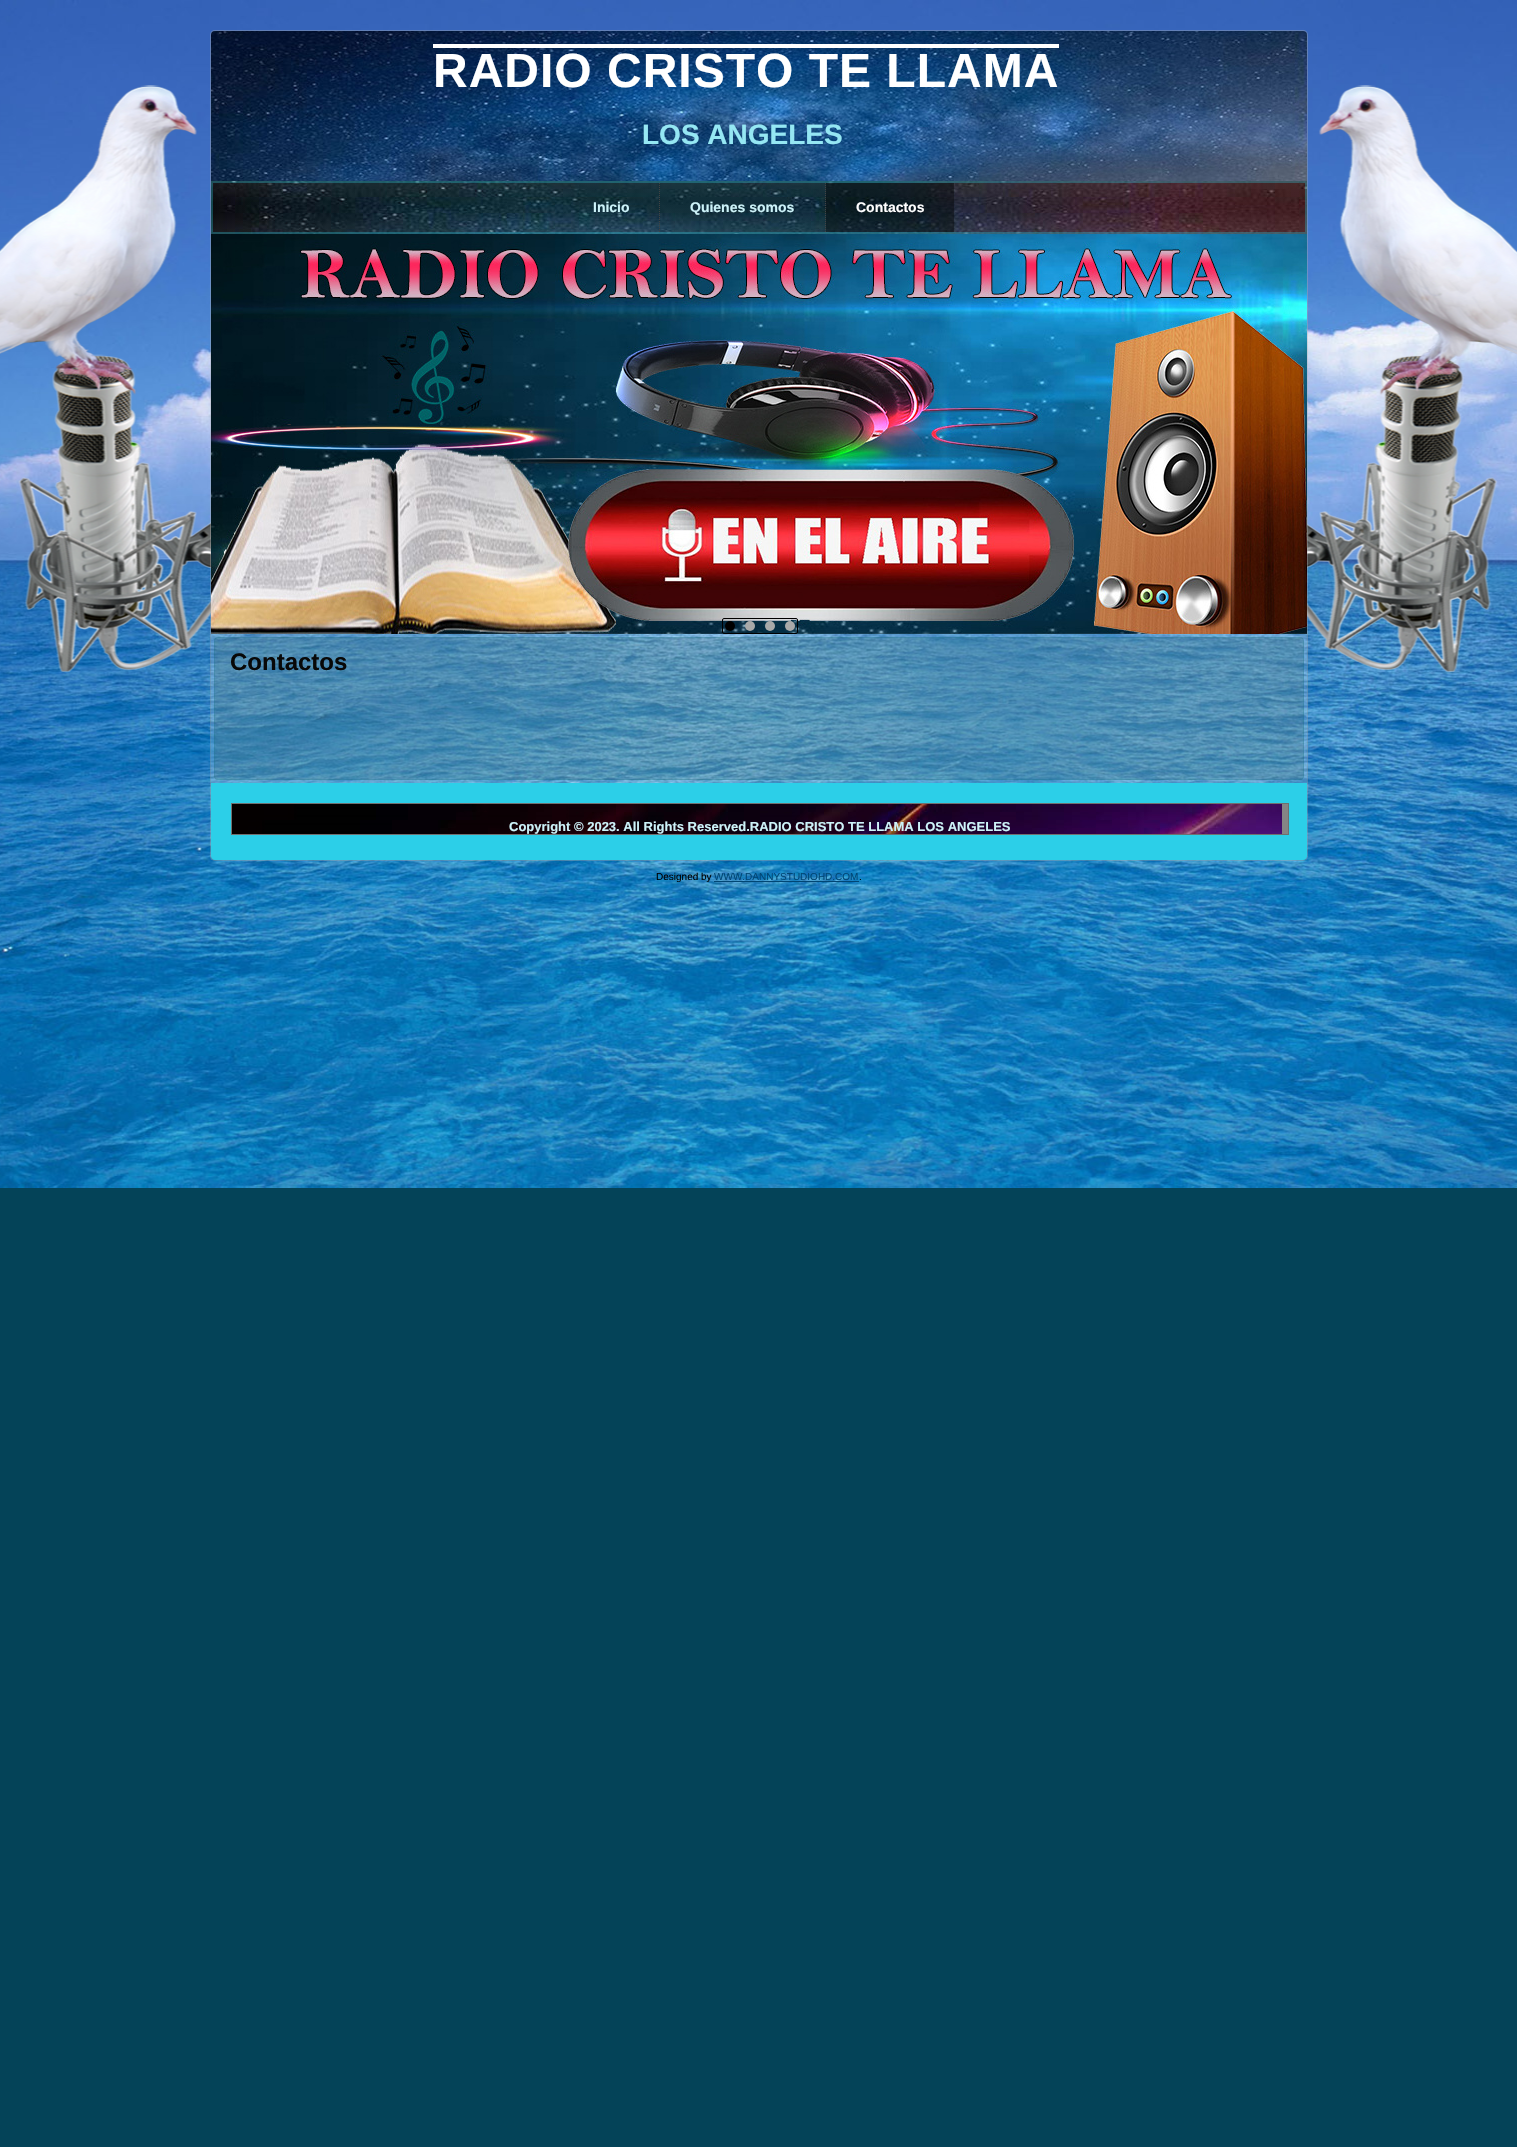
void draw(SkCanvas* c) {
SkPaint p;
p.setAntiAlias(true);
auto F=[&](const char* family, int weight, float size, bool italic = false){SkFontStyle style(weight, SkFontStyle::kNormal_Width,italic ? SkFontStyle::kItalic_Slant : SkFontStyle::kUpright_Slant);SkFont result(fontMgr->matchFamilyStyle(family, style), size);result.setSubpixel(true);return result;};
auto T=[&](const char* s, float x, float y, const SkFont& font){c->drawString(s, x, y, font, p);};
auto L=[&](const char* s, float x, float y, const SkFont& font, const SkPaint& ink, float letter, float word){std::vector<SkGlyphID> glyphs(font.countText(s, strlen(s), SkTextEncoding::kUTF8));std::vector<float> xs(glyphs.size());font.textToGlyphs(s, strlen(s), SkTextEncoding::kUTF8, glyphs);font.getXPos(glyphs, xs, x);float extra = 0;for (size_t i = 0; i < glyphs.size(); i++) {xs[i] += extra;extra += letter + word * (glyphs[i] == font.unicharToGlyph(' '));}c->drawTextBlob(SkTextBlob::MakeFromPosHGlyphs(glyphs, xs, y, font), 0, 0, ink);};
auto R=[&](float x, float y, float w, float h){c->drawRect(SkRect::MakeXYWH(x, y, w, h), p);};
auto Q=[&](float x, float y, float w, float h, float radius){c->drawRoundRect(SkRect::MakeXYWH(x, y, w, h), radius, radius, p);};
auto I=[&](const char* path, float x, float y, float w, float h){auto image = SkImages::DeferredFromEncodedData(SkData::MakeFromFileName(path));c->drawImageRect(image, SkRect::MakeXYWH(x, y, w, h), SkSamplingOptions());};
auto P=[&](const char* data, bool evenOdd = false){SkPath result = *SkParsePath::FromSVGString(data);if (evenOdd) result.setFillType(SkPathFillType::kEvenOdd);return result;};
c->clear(0xff044358);
I("1.png",0,0,1517,1188);
p.setColor(0x33ffffff);
Q(210,30,1098,831,5);
p.setStroke(true);
p.setStrokeWidth(1);
p.setColor(0x33707070);
c->drawRoundRect(SkRect::MakeXYWH(210.5,30.5,1097,830),4.5,4.5,p);
I("2.png",211,31,1096,150);
auto f1 = F("Liberation Sans",700,48);
p.setStroke(false);
p.setColor(0xffffffff);
L("RADIO CRISTO TE LLAMA",433,87,f1,p,1,0);
R(433,44,626,4);
auto f2 = F("Liberation Sans",700,28);
p.setColor(0xff95e7f3);
T("LOS ANGELES",642,144,f2);
I("3.png",211,181,1096,53);
p.setStroke(true);
p.setStrokeWidth(2);
p.setColor(0x4d2ccfe8);
c->drawRect(SkRect::MakeXYWH(212,182,1094,51),p);
auto f3 = F("Liberation Sans",700,14);
p.setStroke(false);
p.setColor(0xffcdf3f9);
T("Inicio",593,212,f3);
I("4.png",659,183,1,49);
T("Quienes somos",690,212,f3);
I("5.png",825,183,1,49);
p.setColor(0x66000000);
R(826,183,128,49);
p.setColor(0xffffffff);
T("Contactos",856,212,f3);
I("6.png",211,234,1096,400);
p.setStroke(true);
p.setStrokeWidth(1);
p.setColor(0xff000000);
c->drawRoundRect(SkRect::MakeXYWH(722.5,618.5,75,15),1.5,1.5,p);
p.setStroke(false);
c->drawCircle(730,626,5,p);
p.setColor(0xffa9a9a9);
c->drawCircle(750,626,5,p);
c->drawCircle(770,626,5,p);
c->drawCircle(790,626,5,p);
p.setColor(0x33053f42);
Q(214,637,1090,143,4);
p.setStroke(true);
p.setColor(0x330f798a);
c->drawRoundRect(SkRect::MakeXYWH(214.5,637.5,1089,142),3.5,3.5,p);
auto f4 = F("Liberation Sans",700,24);
p.setStroke(false);
p.setColor(0xff080808);
T("Contactos",230,670,f4);
p.setColor(0xff2ccfe8);
c->drawPath(P("M211 783h1096v73c0 2-2 4-4 4h-1088c-2 0-4-2-4-4z"),p);
p.setColor(0xff858585);
R(1282,804,6,30);
I("7.png",232,804,1050,30);
p.setStroke(true);
p.setColor(0xff707070);
c->drawRect(SkRect::MakeXYWH(231.5,803.5,1057,31),p);
auto f5 = F("Liberation Sans",700,13);
p.setStroke(false);
p.setColor(0xffcdf3f9);
T("Copyright © 2023. All Rights Reserved.RADIO CRISTO TE LLAMA LOS ANGELES",509,831,f5);
auto f6 = F("Liberation Sans",400,10);
p.setColor(0xff000000);
T("Designed by",656,880,f6);
p.setColor(0xff014674);
T("WWW.DANNYSTUDIOHD.COM",714,880,f6);
p.setColor(0xff000000);
T(".",859,880,f6);
p.setColor(0xff014674);
R(714,881,145,1);
}
